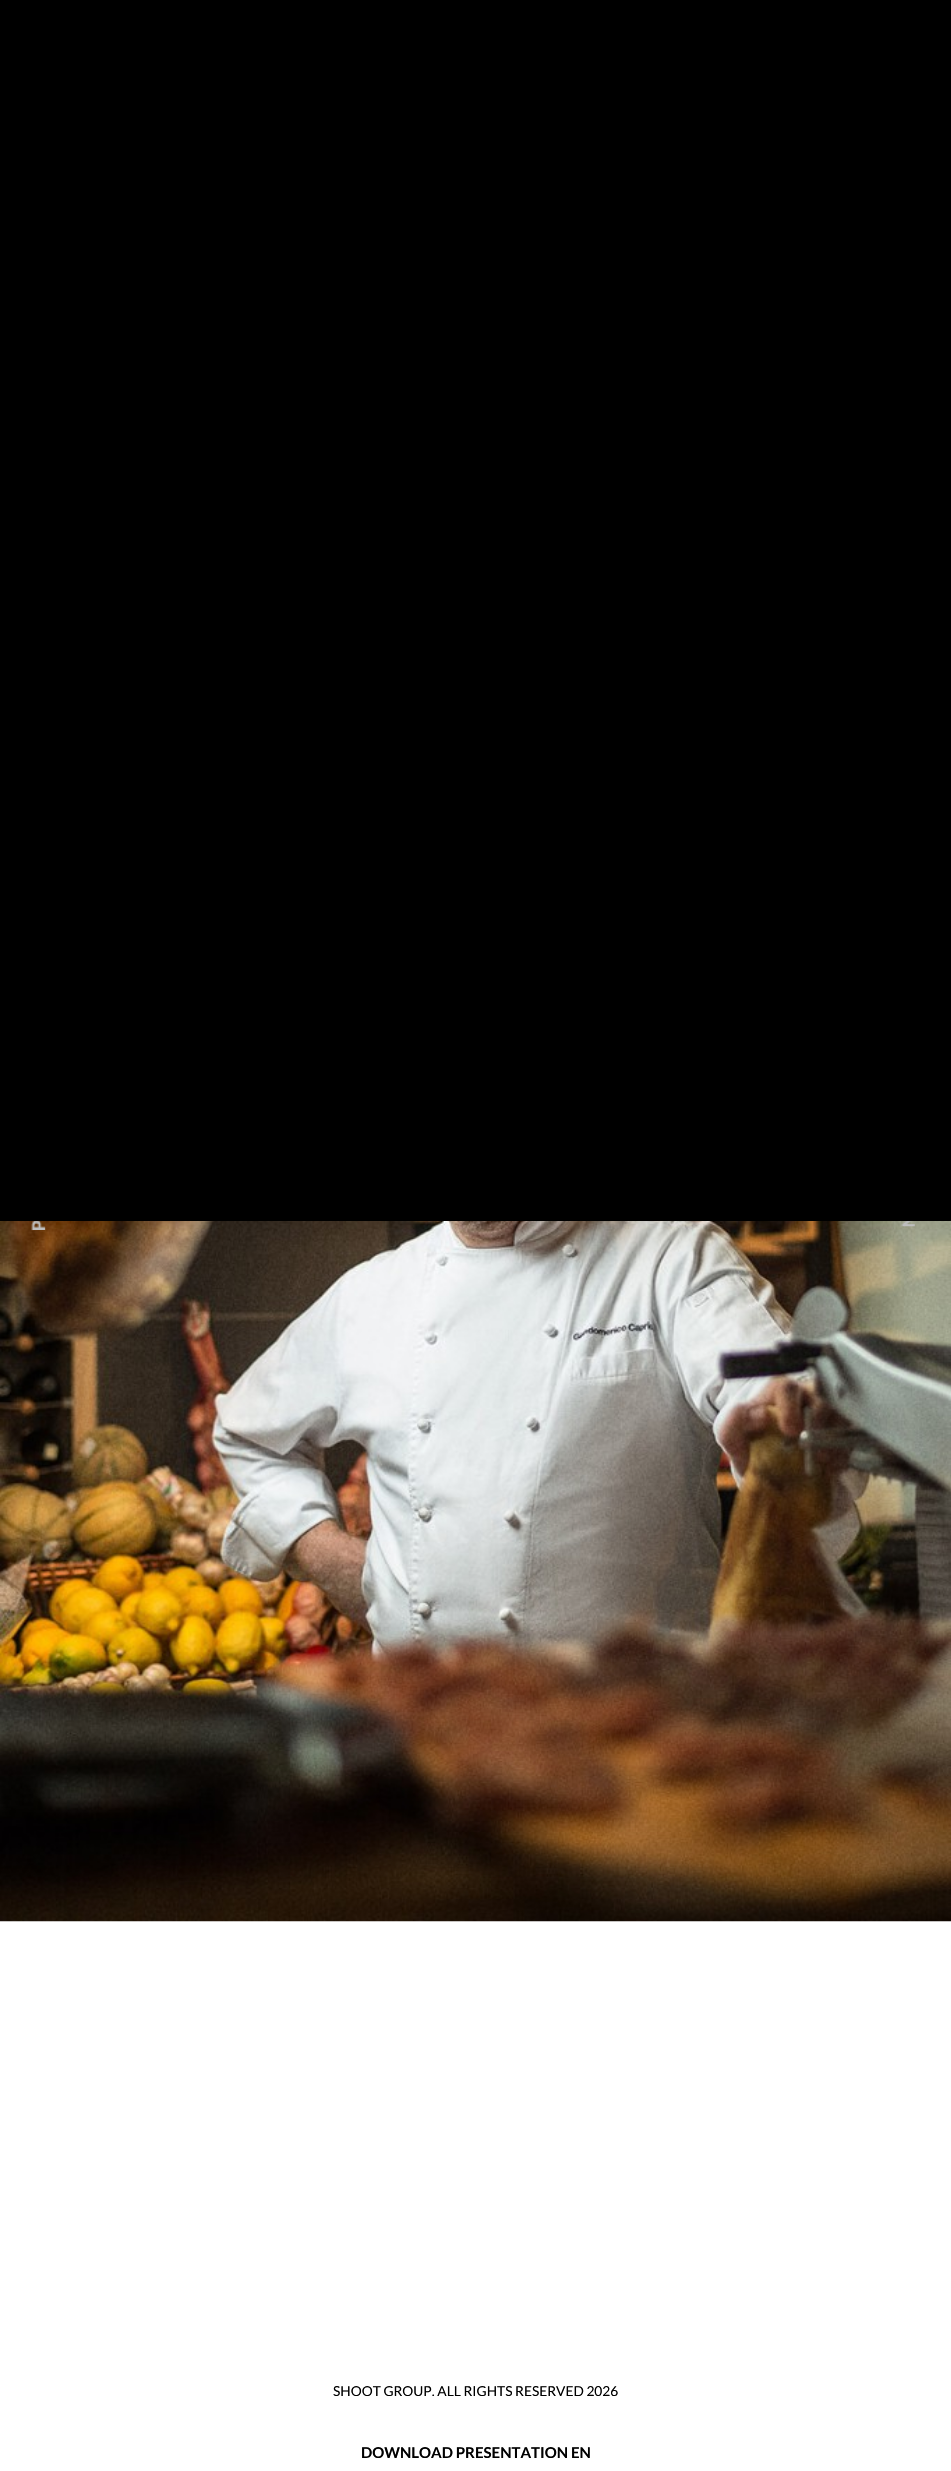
void draw(SkCanvas* c) {
SkPaint p;
p.setAntiAlias(true);
auto F=[&](const char* family, int weight, float size, bool italic = false){SkFontStyle style(weight, SkFontStyle::kNormal_Width,italic ? SkFontStyle::kItalic_Slant : SkFontStyle::kUpright_Slant);SkFont result(fontMgr->matchFamilyStyle(family, style), size);result.setSubpixel(true);return result;};
auto T=[&](const char* s, float x, float y, const SkFont& font){c->drawString(s, x, y, font, p);};
auto R=[&](float x, float y, float w, float h){c->drawRect(SkRect::MakeXYWH(x, y, w, h), p);};
auto I=[&](const char* path, float x, float y, float w, float h){auto image = SkImages::DeferredFromEncodedData(SkData::MakeFromFileName(path));c->drawImageRect(image, SkRect::MakeXYWH(x, y, w, h), SkSamplingOptions());};
c->clear(0xffffffff);
p.setColor(0xff000000);
R(0,0,951,1221);
I("1.png",0,1221,951,701);
I("2.png",31,1221,15,9);
I("3.png",901,1221,14,6);
auto f1 = F("Lato",400,13.75);
T("SHOOT GROUP. ALL RIGHTS RESERVED 2026",333,2396,f1);
auto f2 = F("Lato",700,15);
T("DOWNLOAD PRESENTATION EN",361,2458,f2);
}
